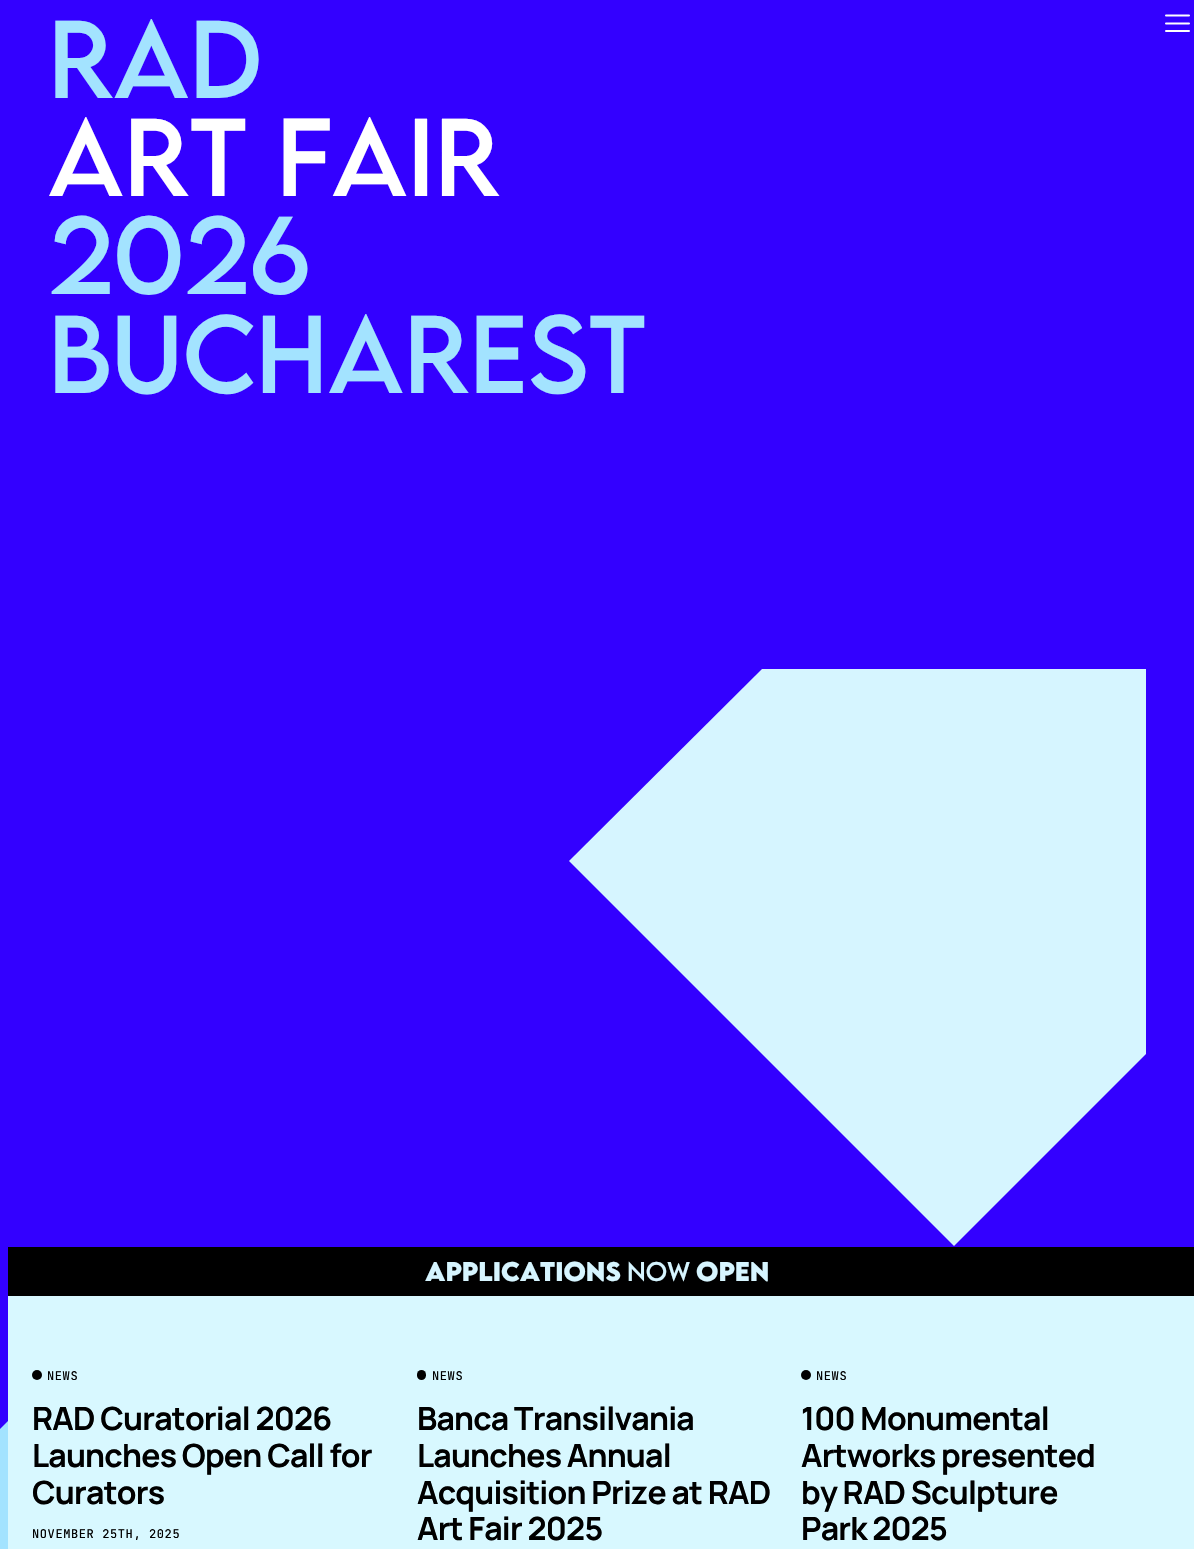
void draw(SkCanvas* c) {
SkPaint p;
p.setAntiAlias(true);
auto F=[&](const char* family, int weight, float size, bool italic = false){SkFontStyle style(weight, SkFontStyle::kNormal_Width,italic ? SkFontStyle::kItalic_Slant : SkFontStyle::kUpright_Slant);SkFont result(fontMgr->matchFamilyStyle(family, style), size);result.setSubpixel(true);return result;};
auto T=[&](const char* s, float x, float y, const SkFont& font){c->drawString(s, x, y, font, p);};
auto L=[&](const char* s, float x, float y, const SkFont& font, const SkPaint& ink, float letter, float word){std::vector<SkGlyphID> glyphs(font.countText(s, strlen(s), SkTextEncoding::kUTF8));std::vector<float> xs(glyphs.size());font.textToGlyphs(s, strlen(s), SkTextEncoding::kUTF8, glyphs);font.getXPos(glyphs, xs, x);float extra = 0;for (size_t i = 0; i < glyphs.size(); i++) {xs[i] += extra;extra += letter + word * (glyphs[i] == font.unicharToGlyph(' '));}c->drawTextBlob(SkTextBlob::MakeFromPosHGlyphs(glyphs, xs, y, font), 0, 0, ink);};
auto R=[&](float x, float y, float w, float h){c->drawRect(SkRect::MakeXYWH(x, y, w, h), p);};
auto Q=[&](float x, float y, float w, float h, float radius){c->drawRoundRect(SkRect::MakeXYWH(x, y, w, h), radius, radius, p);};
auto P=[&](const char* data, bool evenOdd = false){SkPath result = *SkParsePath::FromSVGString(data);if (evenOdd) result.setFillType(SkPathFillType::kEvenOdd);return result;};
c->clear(0xffffffff);
{
const SkColor colors[] = {0xffb7c7ff,0xffd8f8ff};
const float stops[] = {0,.7};
p.setShader(SkGradientShader::MakeRadial({657,77}, 1611, colors, stops, 2, SkTileMode::kClamp));
p.setAlpha(255);
}
R(8,1296,1186,253);
p.setShader(nullptr);
p.setColor(0xff3300ff);
R(0,0,1194,1247);
p.setColor(0xffa3e3ff);
R(0,1421,8,128);
p.setColor(0xff3300ff);
c->drawPath(P("M-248 1165l-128 128l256 256l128-128v-256z"),p);
auto f1 = F("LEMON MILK",400,98.25);
p.setColor(0xffa3e3ff);
T("RAD",48,98,f1);
p.setColor(0xffffffff);
T("ART FAIR",48,196,f1);
p.setColor(0xffa3e3ff);
T("2026",48,294,f1);
T("BUCHAREST",48,393,f1);
p.setColor(0xffd6f5ff);
c->drawPath(P("M762 669h384v385l-192 192l-385-385z"),p);
p.setColor(0xff000000);
R(8,1247,1186,49);
auto f2 = F("LEMON MILK",700,24);
p.setColor(0xffd6f5ff);
T("Applications",425,1281,f2);
auto f3 = F("LEMON MILK",400,24);
T("now",627,1281,f3);
T("Open",696,1281,f2);
p.setColor(0xff000000);
c->drawCircle(37,1375,5,p);
auto f4 = F("JetBrains Mono",500,12);
L("NEWS",47,1380,f4,p,.6,0);
auto f5 = F("Manrope",700,32);
L("RAD Curatorial 2026",32,1430,f5,p,-.8,0);
L("Launches Open Call for",32,1467,f5,p,-.8,0);
L("Curators",32,1504,f5,p,-.8,0);
L("NOVEMBER 25TH, 2025",32,1538,f4,p,.6,0);
Q(417,1370,9,10,4.5);
L("NEWS",432,1380,f4,p,.6,0);
L("Banca Transilvania",417,1430,f5,p,-.8,0);
L("Launches Annual",417,1467,f5,p,-.8,0);
L("Acquisition Prize at RAD",417,1504,f5,p,-.8,0);
L("Art Fair 2025",417,1540,f5,p,-.8,0);
c->drawCircle(806,1375,5,p);
L("NEWS",816,1380,f4,p,.6,0);
L("100 Monumental",801,1430,f5,p,-.8,0);
L("Artworks presented",801,1467,f5,p,-.8,0);
L("by RAD Sculpture",801,1504,f5,p,-.8,0);
L("Park 2025",801,1540,f5,p,-.8,0);
p.setStroke(true);
p.setStrokeWidth(2);
p.setStrokeCap(SkPaint::kRound_Cap);
p.setColor(0xffffffff);
c->drawPath(P("M1166 23.5h23m-23-8h23m-23 15.5h23"),p);
}
